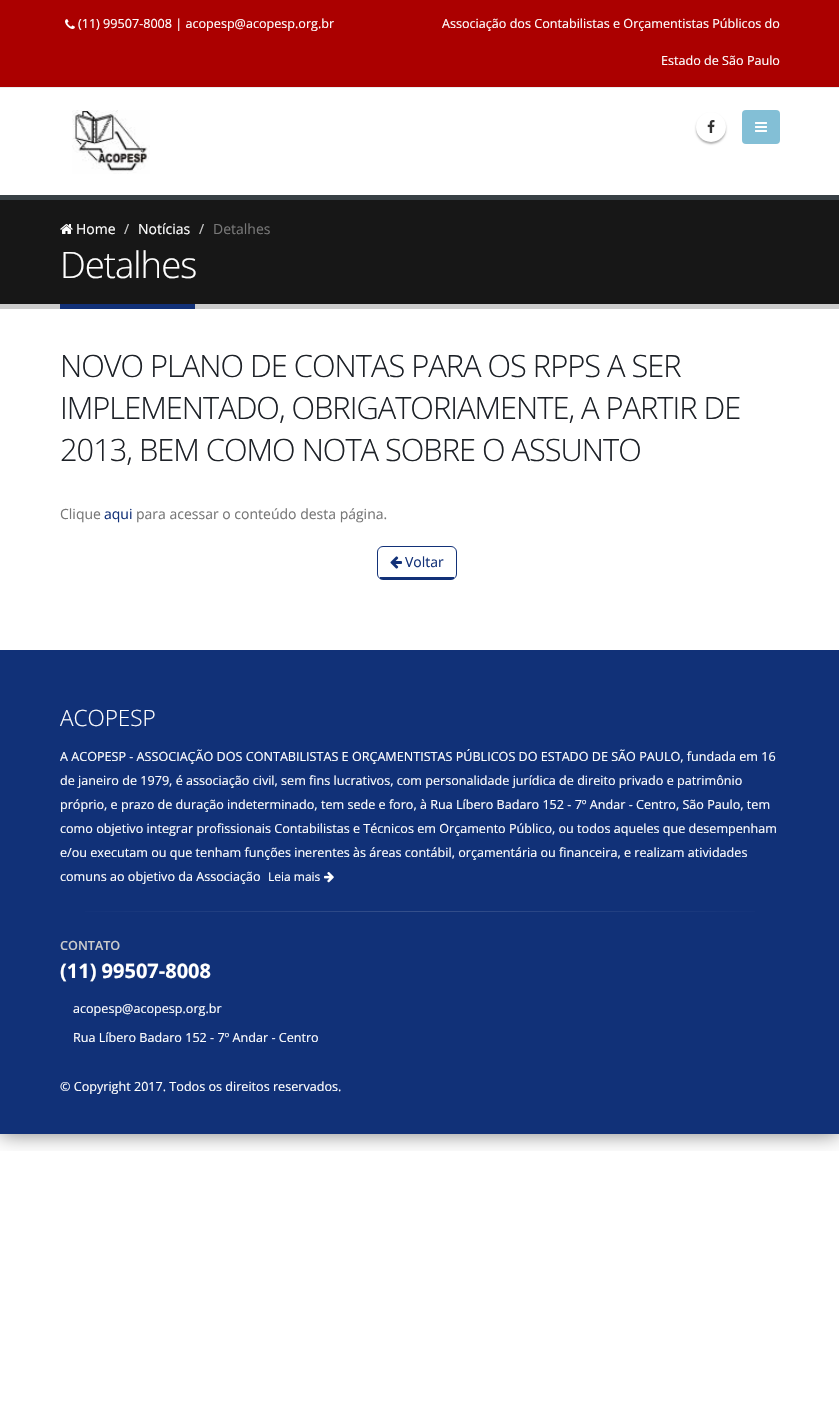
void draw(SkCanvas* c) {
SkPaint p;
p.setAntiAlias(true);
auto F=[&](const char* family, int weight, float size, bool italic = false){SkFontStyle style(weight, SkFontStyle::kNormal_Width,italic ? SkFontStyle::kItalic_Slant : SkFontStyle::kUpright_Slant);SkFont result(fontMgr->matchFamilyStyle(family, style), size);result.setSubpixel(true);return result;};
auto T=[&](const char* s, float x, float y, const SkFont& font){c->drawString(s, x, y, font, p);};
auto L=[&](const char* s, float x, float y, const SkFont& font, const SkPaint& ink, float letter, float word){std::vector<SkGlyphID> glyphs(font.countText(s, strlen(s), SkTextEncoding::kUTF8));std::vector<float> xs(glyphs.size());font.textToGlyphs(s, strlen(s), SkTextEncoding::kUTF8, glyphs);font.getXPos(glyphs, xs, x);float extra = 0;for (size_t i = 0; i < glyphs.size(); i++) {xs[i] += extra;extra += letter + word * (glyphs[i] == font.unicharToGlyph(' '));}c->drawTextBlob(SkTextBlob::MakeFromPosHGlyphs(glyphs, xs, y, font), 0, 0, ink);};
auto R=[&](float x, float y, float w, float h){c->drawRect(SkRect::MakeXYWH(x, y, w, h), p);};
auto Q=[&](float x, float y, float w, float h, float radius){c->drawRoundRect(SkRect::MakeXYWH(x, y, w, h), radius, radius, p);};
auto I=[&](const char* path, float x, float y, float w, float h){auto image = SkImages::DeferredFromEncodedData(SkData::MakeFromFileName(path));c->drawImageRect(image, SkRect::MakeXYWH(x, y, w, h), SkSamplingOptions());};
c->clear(0xffffffff);
c->save();
c->clipRect(SkRect::MakeXYWH(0,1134,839,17));
p.setColor(0x80000000);
p.setMaskFilter(SkMaskFilter::MakeBlur(kNormal_SkBlurStyle, 10));
c->drawRect(SkRect::MakeXYWH(0,0,839,1134),p);
p.setMaskFilter(nullptr);
c->restore();
p.setColor(0xffab0000);
R(0,0,839,87);
p.setColor(0xffededed);
R(0,87,839,1);
I("1.png",65,19,10,10);
auto f1 = F("Open Sans",400,12.6);
p.setColor(0xffffffff);
T("(11) 99507-8008 | acopesp@acopesp.org.br",78,28,f1);
T("Associação dos Contabilistas e Orçamentistas Públicos do",442,28,f1);
T("Estado de São Paulo",661,65,f1);
I("2.png",72,110,78,64);
p.setColor(0x4d000000);
p.setMaskFilter(SkMaskFilter::MakeBlur(kNormal_SkBlurStyle, 1));
c->drawRoundRect(SkRect::MakeXYWH(696,114,30,30),15,15,p);
p.setMaskFilter(nullptr);
p.setColor(0xffffffff);
c->drawCircle(711,127,15,p);
I("3.png",707,120,8,13);
p.setColor(0xff83bfd6);
Q(742,110,38,34,4);
I("4.png",755,122,12,10);
p.setColor(0xff171717);
R(0,200,839,104);
p.setColor(0xff384045);
R(0,195,839,5);
p.setColor(0xffcccccc);
R(0,304,839,5);
I("5.png",60,224,13,10);
auto f2 = F("Open Sans",400,14);
p.setColor(0xffffffff);
T("Home",76,234,f2);
p.setColor(0xffcccccc);
T("/",124,234,f2);
p.setColor(0xffffffff);
T("Notícias",138,234,f2);
p.setColor(0xffcccccc);
T("/",199,234,f2);
p.setColor(0xff777777);
T("Detalhes",213,234,f2);
p.setColor(0xff123178);
R(60,304,135,5);
auto f3 = F("Open Sans",300,36.5);
p.setColor(0xffffffff);
L("Detalhes",60,278,f3,p,-1,0);
auto f4 = F("Open Sans",300,30.8);
p.setColor(0xff1d2127);
L("NOVO PLANO DE CONTAS PARA OS RPPS A SER",60,377,f4,p,-1,0);
L("IMPLEMENTADO, OBRIGATORIAMENTE, A PARTIR DE",60,419,f4,p,-1,0);
L("2013, BEM COMO NOTA SOBRE O ASSUNTO",60,461,f4,p,-1,0);
p.setColor(0xff777777);
T("Clique",60,519,f2);
p.setColor(0xff123178);
T("aqui",104,519,f2);
p.setColor(0xff777777);
T("para acessar o conteúdo desta página.",136,519,f2);
p.setStroke(true);
p.setStrokeWidth(1);
p.setColor(0xff123178);
c->drawRoundRect(SkRect::MakeXYWH(377.5,546.5,79,33),5.5,5.5,p);
p.setStroke(false);
R(380,577,74,2);
I("6.png",390,556,12,13);
T("Voltar",405,567,f2);
p.setColor(0xff113178);
R(0,650,839,484);
auto f5 = F("Open Sans",300,22.5);
p.setColor(0xffffffff);
T("ACOPESP",60,726,f5);
T("A ACOPESP - ASSOCIAÇÃO DOS CONTABILISTAS E ORÇAMENTISTAS PÚBLICOS DO ESTADO DE SÃO PAULO, fundada em 16",60,761,f1);
T("de janeiro de 1979, é associação civil, sem fins lucrativos, com personalidade jurídica de direito privado e patrimônio",60,785,f1);
T("próprio, e prazo de duração indeterminado, tem sede e foro, à Rua Líbero Badaro 152 - 7º Andar - Centro, São Paulo, tem",60,809,f1);
T("como objetivo integrar profissionais Contabilistas e Técnicos em Orçamento Público, ou todos aqueles que desempenham",60,833,f1);
T("e/ou executam ou que tenham funções inerentes às áreas contábil, orçamentária ou financeira, e realizam atividades",60,857,f1);
T("comuns ao objetivo da Associação",60,881,f1);
auto f6 = F("Open Sans",400,12);
T("Leia mais",268,881,f6);
I("7.png",324,872,10,11);
{
const SkColor colors[] = {0xff113178,0xff35508c,0xff113178};
const float stops[] = {0,.5,1};
const SkPoint ends[] = {{60,912}, {780,912}};
p.setShader(SkGradientShader::MakeLinear(ends, colors, stops, 3, SkTileMode::kClamp));
p.setAlpha(255);
}
R(85,911,670,1);
auto f7 = F("Open Sans",600,12.6);
p.setShader(nullptr);
p.setColor(0xffcccccc);
T("CONTATO",60,950,f7);
auto f8 = F("Open Sans",700,20);
p.setColor(0xffffffff);
T("(11) 99507-8008",60,978,f8);
T("acopesp@acopesp.org.br",73,1013,f1);
T("Rua Líbero Badaro 152 - 7º Andar - Centro",73,1042,f1);
T("© Copyright 2017. Todos os direitos reservados.",60,1091,f1);
}
